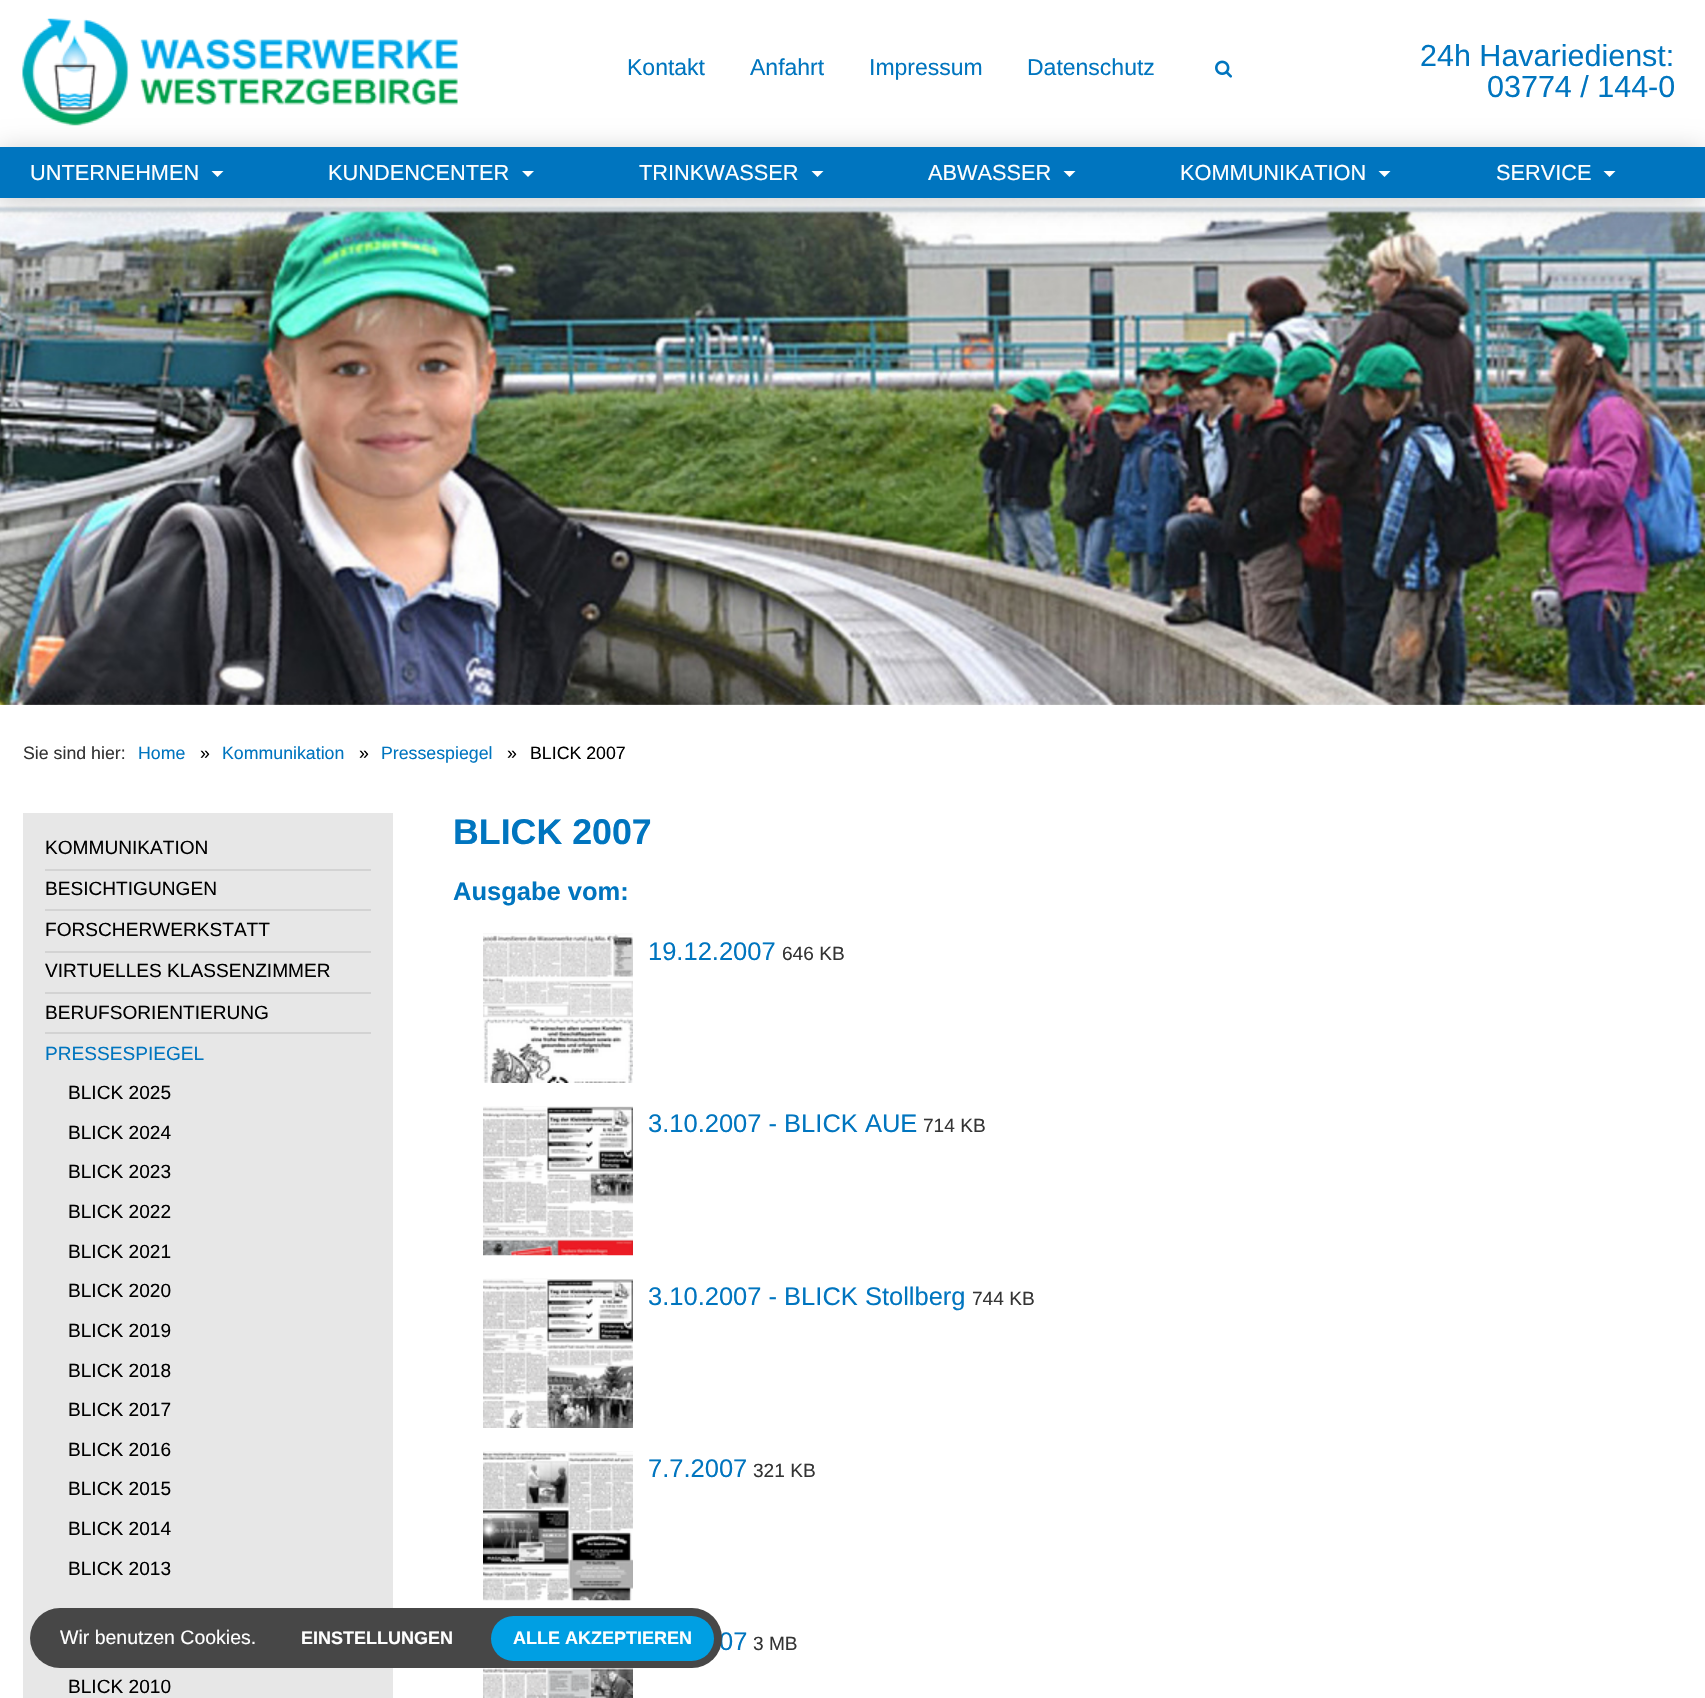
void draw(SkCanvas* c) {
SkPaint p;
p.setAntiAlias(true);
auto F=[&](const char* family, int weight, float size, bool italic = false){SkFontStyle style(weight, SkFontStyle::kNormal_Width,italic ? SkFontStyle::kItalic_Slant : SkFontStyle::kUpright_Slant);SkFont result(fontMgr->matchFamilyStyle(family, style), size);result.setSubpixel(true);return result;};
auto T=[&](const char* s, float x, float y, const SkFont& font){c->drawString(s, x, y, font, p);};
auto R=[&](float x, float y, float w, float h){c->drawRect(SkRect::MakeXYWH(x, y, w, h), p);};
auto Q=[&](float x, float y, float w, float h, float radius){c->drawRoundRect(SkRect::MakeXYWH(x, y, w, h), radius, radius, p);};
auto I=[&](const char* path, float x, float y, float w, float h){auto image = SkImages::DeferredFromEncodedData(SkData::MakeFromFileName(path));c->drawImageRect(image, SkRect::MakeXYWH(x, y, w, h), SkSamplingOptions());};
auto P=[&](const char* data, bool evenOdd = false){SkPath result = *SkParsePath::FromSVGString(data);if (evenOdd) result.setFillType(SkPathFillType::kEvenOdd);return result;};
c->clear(0xffffffff);
I("1.png",22,18,436,108);
auto f1 = F("Liberation Sans",400,23);
p.setColor(0xff0075bf);
T("Kontakt",627,75,f1);
T("Anfahrt",750,75,f1);
T("Impressum",869,75,f1);
T("Datenschutz",1027,75,f1);
I("2.png",1215,60,17,18);
auto f2 = F("Liberation Sans",400,30.5);
T("24h Havariedienst:",1420,66,f2);
T("03774 / 144-0",1487,97,f2);
I("3.png",0,198,1705,507);
p.setColor(0x33000000);
p.setMaskFilter(SkMaskFilter::MakeBlur(kNormal_SkBlurStyle, 13.5));
c->drawRect(SkRect::MakeXYWH(-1,150,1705,51),p);
p.setMaskFilter(nullptr);
p.setColor(0xff0075bf);
R(0,147,1705,51);
auto f3 = F("Liberation Sans",400,21.75);
p.setColor(0xffffffff);
T("UNTERNEHMEN",30,180,f3);
c->drawPath(P("M211.5 171h12l-6 6z"),p);
T("KUNDENCENTER",328,180,f3);
c->drawPath(P("M522 171h12l-6 6z"),p);
T("TRINKWASSER",639,180,f3);
c->drawPath(P("M811.5 171h12l-6 6z"),p);
T("ABWASSER",928,180,f3);
c->drawPath(P("M1063.5 171h12l-6 6z"),p);
T("KOMMUNIKATION",1180,180,f3);
c->drawPath(P("M1378.5 171h12l-6 6z"),p);
T("SERVICE",1496,180,f3);
c->drawPath(P("M1603.5 171h12l-6 6z"),p);
auto f4 = F("Liberation Sans",400,17.75);
p.setColor(0xff343434);
T("Sie sind hier:",23,759,f4);
p.setColor(0xff0075bf);
T("Home",138,759,f4);
p.setColor(0xff000000);
T("»",200,759,f4);
p.setColor(0xff0075bf);
T("Kommunikation",222,759,f4);
p.setColor(0xff000000);
T("»",359,759,f4);
p.setColor(0xff0075bf);
T("Pressespiegel",381,759,f4);
p.setColor(0xff000000);
T("»",507,759,f4);
T("BLICK 2007",530,759,f4);
p.setColor(0xffe7e7e7);
R(23,813,370,885);
p.setColor(0xffd3d3d3);
R(45,869,326,2);
auto f5 = F("Liberation Sans",400,19.1);
p.setColor(0xff000000);
T("KOMMUNIKATION",45,854,f5);
p.setColor(0xffd3d3d3);
R(45,909,326,2);
p.setColor(0xff000000);
T("BESICHTIGUNGEN",45,895,f5);
p.setColor(0xffd3d3d3);
R(45,951,326,2);
p.setColor(0xff000000);
T("FORSCHERWERKSTATT",45,936,f5);
p.setColor(0xffd3d3d3);
R(45,992,326,2);
p.setColor(0xff000000);
T("VIRTUELLES KLASSENZIMMER",45,977,f5);
p.setColor(0xffd3d3d3);
R(45,1032,326,2);
p.setColor(0xff000000);
T("BERUFSORIENTIERUNG",45,1019,f5);
p.setColor(0xff0075bf);
T("PRESSESPIEGEL",45,1060,f5);
p.setColor(0xff000000);
T("BLICK 2025",68,1099,f5);
T("BLICK 2024",68,1139,f5);
T("BLICK 2023",68,1178,f5);
T("BLICK 2022",68,1218,f5);
T("BLICK 2021",68,1258,f5);
T("BLICK 2020",68,1297,f5);
T("BLICK 2019",68,1337,f5);
T("BLICK 2018",68,1377,f5);
T("BLICK 2017",68,1416,f5);
T("BLICK 2016",68,1456,f5);
T("BLICK 2015",68,1495,f5);
T("BLICK 2014",68,1535,f5);
T("BLICK 2013",68,1575,f5);
T("BLICK 2010",68,1693,f5);
auto f6 = F("Liberation Sans",700,35.75);
p.setColor(0xff0075bf);
T("BLICK 2007",453,844,f6);
auto f7 = F("Liberation Sans",700,25.5);
T("Ausgabe vom:",453,900,f7);
I("4.png",483,933,150,150);
auto f8 = F("Liberation Sans",400,25.5);
T("19.12.2007",648,960,f8);
p.setColor(0xff343434);
T("646 KB",782,960,f5);
I("5.png",483,1106,150,150);
p.setColor(0xff0075bf);
T("3.10.2007 - BLICK AUE",648,1132,f8);
p.setColor(0xff343434);
T("714 KB",923,1132,f5);
I("6.png",483,1278,150,150);
p.setColor(0xff0075bf);
T("3.10.2007 - BLICK Stollberg",648,1305,f8);
p.setColor(0xff343434);
T("744 KB",972,1305,f5);
I("7.png",483,1451,150,150);
p.setColor(0xff0075bf);
T("7.7.2007",648,1477,f8);
p.setColor(0xff343434);
T("321 KB",753,1477,f5);
p.setColor(0xff0075bf);
T("07",719,1650,f8);
p.setColor(0xff343434);
T("3 MB",753,1650,f5);
I("8.png",483,1668,150,30);
p.setColor(0xff474747);
Q(30,1608,692,60,30);
auto f9 = F("Liberation Sans",400,19.5);
p.setColor(0xffffffff);
T("Wir benutzen Cookies.",60,1644,f9);
auto f10 = F("Liberation Sans",700,18);
T("EINSTELLUNGEN",301,1644,f10);
p.setColor(0xff009fe3);
Q(491,1616,223,45,22.5);
p.setColor(0xffffffff);
T("ALLE AKZEPTIEREN",513,1644,f10);
}
